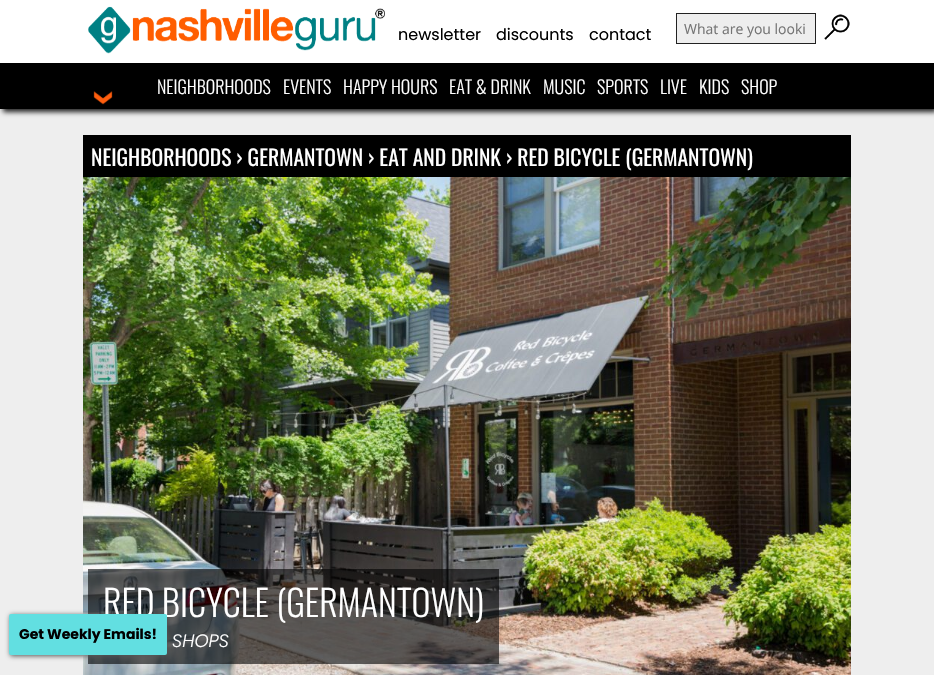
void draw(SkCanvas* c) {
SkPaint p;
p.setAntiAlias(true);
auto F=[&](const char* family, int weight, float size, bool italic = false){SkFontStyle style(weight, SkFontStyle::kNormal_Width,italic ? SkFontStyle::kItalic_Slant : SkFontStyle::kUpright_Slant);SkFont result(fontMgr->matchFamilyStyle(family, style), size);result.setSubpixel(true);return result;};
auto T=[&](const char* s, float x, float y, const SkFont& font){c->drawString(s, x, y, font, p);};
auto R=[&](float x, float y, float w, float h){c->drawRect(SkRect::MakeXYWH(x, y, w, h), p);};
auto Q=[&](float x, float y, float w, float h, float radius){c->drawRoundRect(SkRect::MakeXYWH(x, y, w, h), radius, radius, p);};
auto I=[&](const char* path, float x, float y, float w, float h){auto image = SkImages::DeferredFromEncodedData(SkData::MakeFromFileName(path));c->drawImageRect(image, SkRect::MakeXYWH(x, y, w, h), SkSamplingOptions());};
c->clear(0xffeeeeee);
p.setColor(0xff222222);
p.setMaskFilter(SkMaskFilter::MakeBlur(kNormal_SkBlurStyle, 2.5));
c->drawRect(SkRect::MakeXYWH(3,3,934,109),p);
p.setMaskFilter(nullptr);
p.setColor(0xffffffff);
R(0,0,934,63);
I("1.png",88,6,297,48);
p.setColor(0xff000000);
R(0,63,934,46);
I("2.png",93,91,20,14);
auto f1 = F("Poppins",400,16);
T("newsletter",398,40,f1);
T("discounts",496,40,f1);
T("contact",589,40,f1);
p.setColor(0xffeeeeee);
c->drawRect(SkRect::MakeXYWH(676.5,13.5,139,30),p);
p.setStroke(true);
p.setStrokeWidth(1);
p.setColor(0xff222222);
c->drawRect(SkRect::MakeXYWH(676.5,13.5,139,30),p);
auto f2 = F("Open Sans",400,14);
p.setStroke(false);
p.setColor(0xff757575);
T("What are you looki",684,34,f2);
I("3.png",824,14,26,26);
auto f3 = F("Oswald",300,18);
p.setColor(0xffffffff);
T("NEIGHBORHOODS",157,94,f3);
T("EVENTS",283,94,f3);
T("HAPPY HOURS",343,94,f3);
T("EAT & DRINK",449,94,f3);
T("MUSIC",543,94,f3);
T("SPORTS",597,94,f3);
T("LIVE",660,94,f3);
T("KIDS",699,94,f3);
T("SHOP",741,94,f3);
I("4.png",83,177,768,498);
p.setColor(0x99000000);
R(88,569,411,95);
p.setColor(0xff555555);
p.setMaskFilter(SkMaskFilter::MakeBlur(kNormal_SkBlurStyle, 2.5));
c->drawRoundRect(SkRect::MakeXYWH(10,615,158,41),2,2,p);
p.setMaskFilter(nullptr);
auto f4 = F("Oswald",300,36);
p.setColor(0xffffffff);
T("RED BICYCLE (GERMANTOWN)",103,617,f4);
p.setColor(0xff62dfe1);
Q(9,614,158,41,2);
auto f5 = F("Poppins",700,14);
p.setColor(0xff000000);
T("Get Weekly Emails!",19,639,f5);
R(83,135,768,42);
auto f6 = F("Oswald",400,21.6);
p.setColor(0xffffffff);
T("NEIGHBORHOODS › GERMANTOWN › EAT AND DRINK › RED BICYCLE (GERMANTOWN)",91,166,f6);
auto f7 = F("Poppins",300,18,true);
T("SHOPS",172,647,f7);
}
